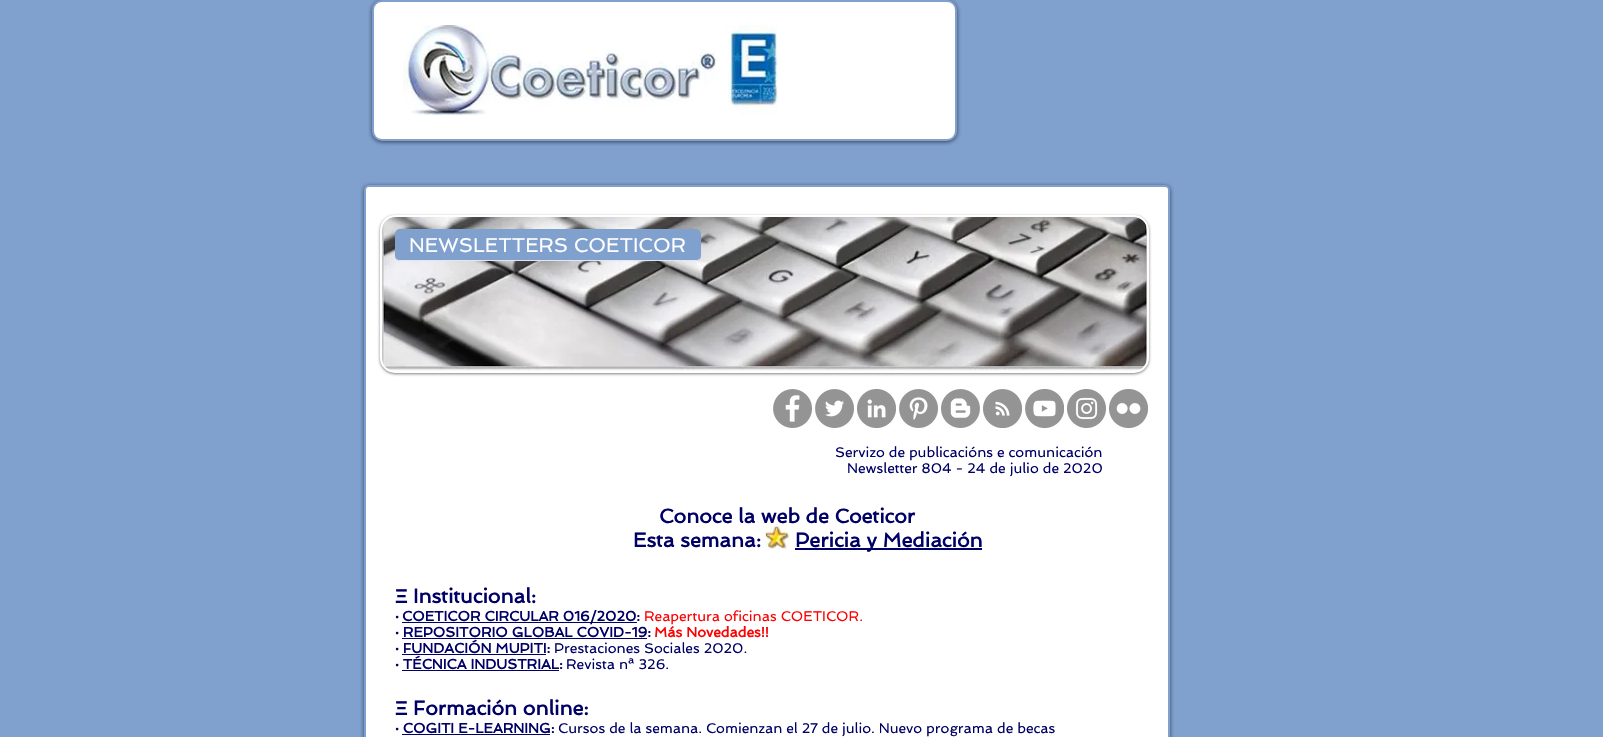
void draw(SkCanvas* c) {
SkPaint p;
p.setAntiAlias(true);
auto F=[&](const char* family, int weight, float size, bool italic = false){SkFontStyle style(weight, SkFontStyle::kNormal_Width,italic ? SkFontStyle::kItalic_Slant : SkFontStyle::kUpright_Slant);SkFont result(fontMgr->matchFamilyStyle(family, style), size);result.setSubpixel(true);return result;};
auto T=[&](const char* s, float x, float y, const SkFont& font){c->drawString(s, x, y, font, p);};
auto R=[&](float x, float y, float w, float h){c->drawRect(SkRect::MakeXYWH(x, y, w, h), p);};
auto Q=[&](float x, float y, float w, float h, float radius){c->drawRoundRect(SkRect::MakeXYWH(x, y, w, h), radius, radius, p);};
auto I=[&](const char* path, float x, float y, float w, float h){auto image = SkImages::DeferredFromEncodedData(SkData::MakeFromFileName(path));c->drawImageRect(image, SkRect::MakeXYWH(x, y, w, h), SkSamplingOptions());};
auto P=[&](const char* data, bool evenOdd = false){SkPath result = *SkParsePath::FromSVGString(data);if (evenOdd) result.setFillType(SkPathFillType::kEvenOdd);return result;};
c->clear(0xff80a0ce);
p.setColor(0x99000000);
p.setMaskFilter(SkMaskFilter::MakeBlur(kNormal_SkBlurStyle, 2));
c->drawRoundRect(SkRect::MakeXYWH(372,1,585,141),10,10,p);
p.setMaskFilter(nullptr);
p.setColor(0xffffffff);
c->drawRoundRect(SkRect::MakeXYWH(373,1,583,139),9,9,p);
p.setStroke(true);
p.setStrokeWidth(2);
p.setColor(0xff80a0ce);
c->drawRoundRect(SkRect::MakeXYWH(373,1,583,139),9,9,p);
I("1.png",403,25,375,90);
p.setStroke(false);
p.setColor(0x99000000);
p.setMaskFilter(SkMaskFilter::MakeBlur(kNormal_SkBlurStyle, 2));
c->drawRoundRect(SkRect::MakeXYWH(364,186,806,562),5,5,p);
p.setMaskFilter(nullptr);
p.setColor(0xffffffff);
c->drawRoundRect(SkRect::MakeXYWH(365,186,804,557),4,4,p);
p.setStroke(true);
p.setColor(0xff80a0ce);
c->drawRoundRect(SkRect::MakeXYWH(365,186,804,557),4,4,p);
p.setStroke(false);
p.setColor(0x80000000);
p.setMaskFilter(SkMaskFilter::MakeBlur(kNormal_SkBlurStyle, 1.5));
c->drawRoundRect(SkRect::MakeXYWH(380,216,769,158),15,15,p);
p.setMaskFilter(nullptr);
p.setColor(0xffffffff);
c->drawRoundRect(SkRect::MakeXYWH(381,216,767,156),14,14,p);
p.setStroke(true);
c->drawRoundRect(SkRect::MakeXYWH(381,216,767,156),14,14,p);
I("2.png",382,217,765,154);
p.setStroke(false);
p.setColor(0xff80a0ce);
Q(395,229,306,32,5);
p.setColor(0xbfffffff);
c->drawPath(P("M395 255c0 3 2 6 5 6h296c3 0 5-3 5-6c0 3-2 5-5 5h-296c-3 0-5-2-5-5z"),p);
auto f1 = F("Spinnaker",400,20);
p.setColor(0xffffffff);
T("NEWSLETTERS COETICOR",409,252,f1);
I("3.png",773,389,39,39);
I("4.png",815,389,39,39);
I("5.png",857,389,39,39);
I("6.png",899,389,39,39);
I("7.png",941,389,39,39);
I("8.png",983,389,39,39);
I("9.png",1025,389,39,39);
I("10.png",1067,389,39,39);
I("11.png",1109,389,39,39);
auto f2 = F("Spinnaker",400,14);
p.setColor(0xff000066);
T("Servizo de publicacións e comunicación",835,457,f2);
T("Newsletter 804 - 24 de julio de 2020",847,473,f2);
I("12.png",762,524,28,26);
auto f3 = F("Liberation Sans",700,20);
T("Ξ",395,603,f3);
auto f4 = F("Spinnaker",700,20);
T("Institucional:",413,603,f4);
auto f5 = F("Spinnaker",700,14);
T("·",395,621,f5);
R(402,622,235,1);
T("COETICOR CIRCULAR 016/2020:",402,621,f5);
p.setColor(0xfffb0303);
T("Reapertura oficinas COETICOR.",644,621,f2);
p.setColor(0xff000066);
T("· REPOSITORIO GLOBAL COVID-19:",395,637,f5);
R(402,638,245,1);
p.setColor(0xfffb0303);
T("Más Novedades!!",654,637,f5);
p.setColor(0xff000066);
T("· FUNDACIÓN MUPITI:",395,653,f5);
R(402,654,144,1);
T("Prestaciones Sociales 2020.",554,653,f2);
T("· TÉCNICA INDUSTRIAL:",395,669,f5);
R(402,670,157,1);
T("Revista nª 326.",566,669,f2);
T("Ξ",395,715,f3);
T("Formación online:",413,715,f4);
T("· COGITI E-LEARNING:",395,733,f5);
R(402,734,148,1);
T("Cursos de la semana. Comienzan el 27 de julio. Nuevo programa de becas",558,733,f2);
T("Conoce la web de Coeticor",659,523,f4);
T("Esta semana:",633,547,f4);
R(795,548,187,2);
T("Pericia y Mediación",795,547,f4);
}
